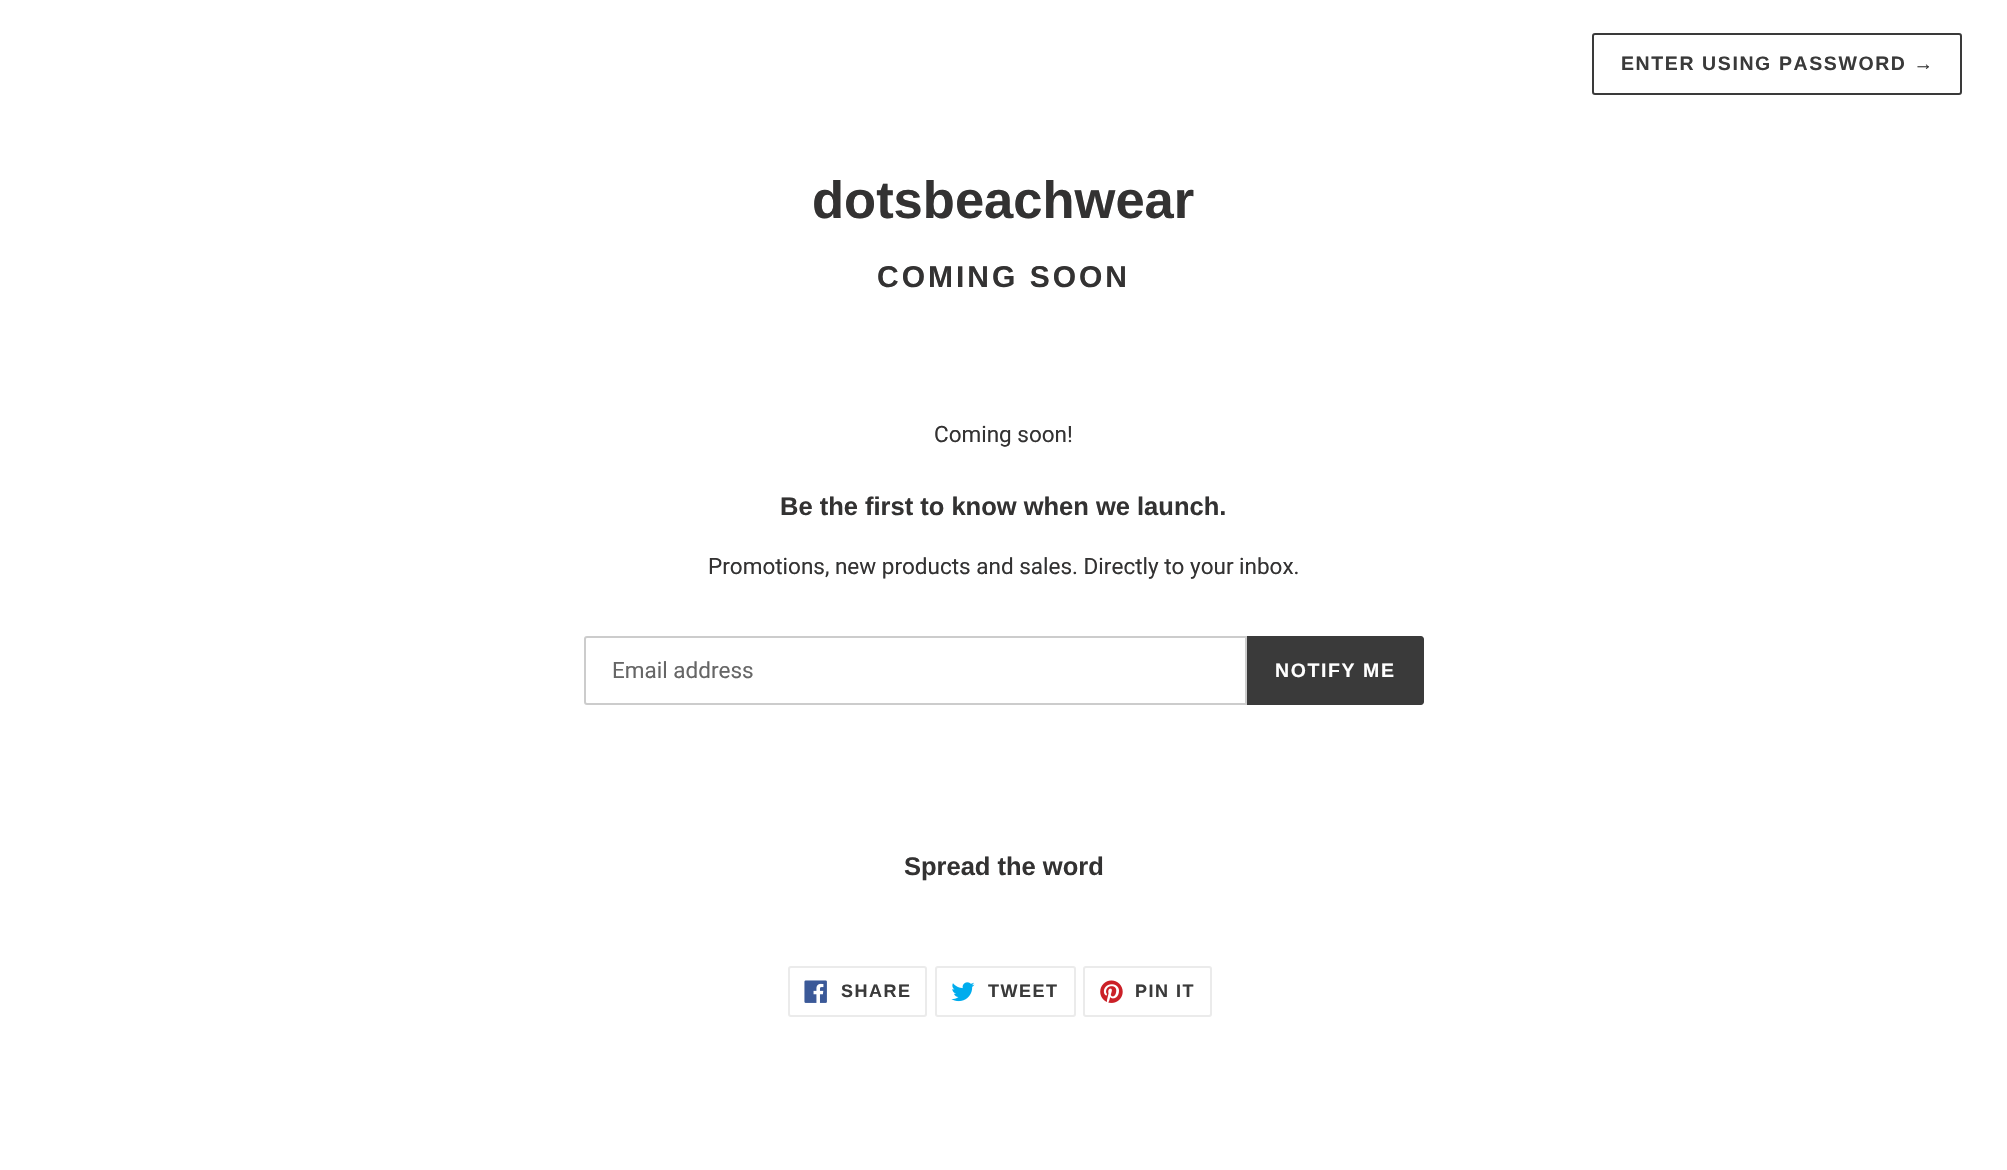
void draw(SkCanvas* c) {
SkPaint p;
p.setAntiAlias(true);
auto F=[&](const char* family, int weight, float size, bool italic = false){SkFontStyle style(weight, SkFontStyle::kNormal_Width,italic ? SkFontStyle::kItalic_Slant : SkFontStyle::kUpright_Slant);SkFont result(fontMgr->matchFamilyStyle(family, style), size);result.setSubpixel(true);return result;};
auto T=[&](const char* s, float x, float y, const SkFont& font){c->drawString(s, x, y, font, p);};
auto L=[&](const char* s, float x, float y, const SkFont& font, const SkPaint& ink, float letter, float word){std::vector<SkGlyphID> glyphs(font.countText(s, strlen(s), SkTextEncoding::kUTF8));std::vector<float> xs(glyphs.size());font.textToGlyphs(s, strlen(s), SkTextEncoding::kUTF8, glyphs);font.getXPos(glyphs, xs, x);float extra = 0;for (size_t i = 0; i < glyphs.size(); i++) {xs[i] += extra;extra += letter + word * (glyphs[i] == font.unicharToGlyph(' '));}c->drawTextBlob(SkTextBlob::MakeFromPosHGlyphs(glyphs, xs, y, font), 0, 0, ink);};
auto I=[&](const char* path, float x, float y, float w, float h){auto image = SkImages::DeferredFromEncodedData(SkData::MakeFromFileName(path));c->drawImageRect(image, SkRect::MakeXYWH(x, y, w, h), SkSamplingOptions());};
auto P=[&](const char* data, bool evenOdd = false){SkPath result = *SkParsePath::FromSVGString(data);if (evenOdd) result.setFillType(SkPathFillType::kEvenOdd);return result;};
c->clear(0xffffffff);
p.setStroke(true);
p.setStrokeWidth(2);
p.setColor(0xff3a3a3a);
c->drawRoundRect(SkRect::MakeXYWH(1593,34,368,60),2,2,p);
auto f1 = F("Liberation Sans",700,19.5);
p.setStroke(false);
L("ENTER USING PASSWORD →",1621,70,f1,p,1.6,0);
auto f2 = F("Liberation Sans",700,52.5);
p.setColor(0xff333232);
T("dotsbeachwear",812,218,f2);
auto f3 = F("Liberation Sans",700,30);
L("COMING SOON",877,287,f3,p,3,0);
auto f4 = F("Roboto",400,22.5);
T("Coming soon!",934,442,f4);
auto f5 = F("Liberation Sans",700,25.5);
T("Be the first to know when we launch.",780,515,f5);
T("Promotions, new products and sales. Directly to your inbox.",708,574,f4);
p.setStroke(true);
p.setColor(0xffcccccc);
c->drawPath(P("M587 637h659v67h-659c-1 0-2-1-2-2v-63c0-1 1-2 2-2z"),p);
p.setStroke(false);
p.setColor(0xff666666);
T("Email address",612,678,f4);
p.setColor(0xff3a3a3a);
c->drawPath(P("M1247 636h174c1.5 0 3 1.5 3 3v63c0 1.5-1.5 3-3 3h-174z"),p);
p.setColor(0xffffffff);
L("NOTIFY ME",1275,677,f1,p,1.6,0);
p.setColor(0xff333232);
T("Spread the word",904,875,f5);
p.setStroke(true);
p.setColor(0xffebebeb);
c->drawRoundRect(SkRect::MakeXYWH(789,967,137,49),2,2,p);
I("1.png",804,980,23,23);
auto f6 = F("Liberation Sans",700,18);
p.setStroke(false);
p.setColor(0xff3a3a3a);
L("SHARE",841,997,f6,p,1.5,0);
p.setStroke(true);
p.setColor(0xffebebeb);
c->drawRoundRect(SkRect::MakeXYWH(936,967,139,49),2,2,p);
I("2.png",951,982,24,20);
p.setStroke(false);
p.setColor(0xff3a3a3a);
L("TWEET",988,997,f6,p,1.5,0);
p.setStroke(true);
p.setColor(0xffebebeb);
c->drawRoundRect(SkRect::MakeXYWH(1084,967,127,49),2,2,p);
I("3.png",1100,980,23,23);
p.setStroke(false);
p.setColor(0xff3a3a3a);
L("PIN IT",1135,997,f6,p,1.5,0);
}
